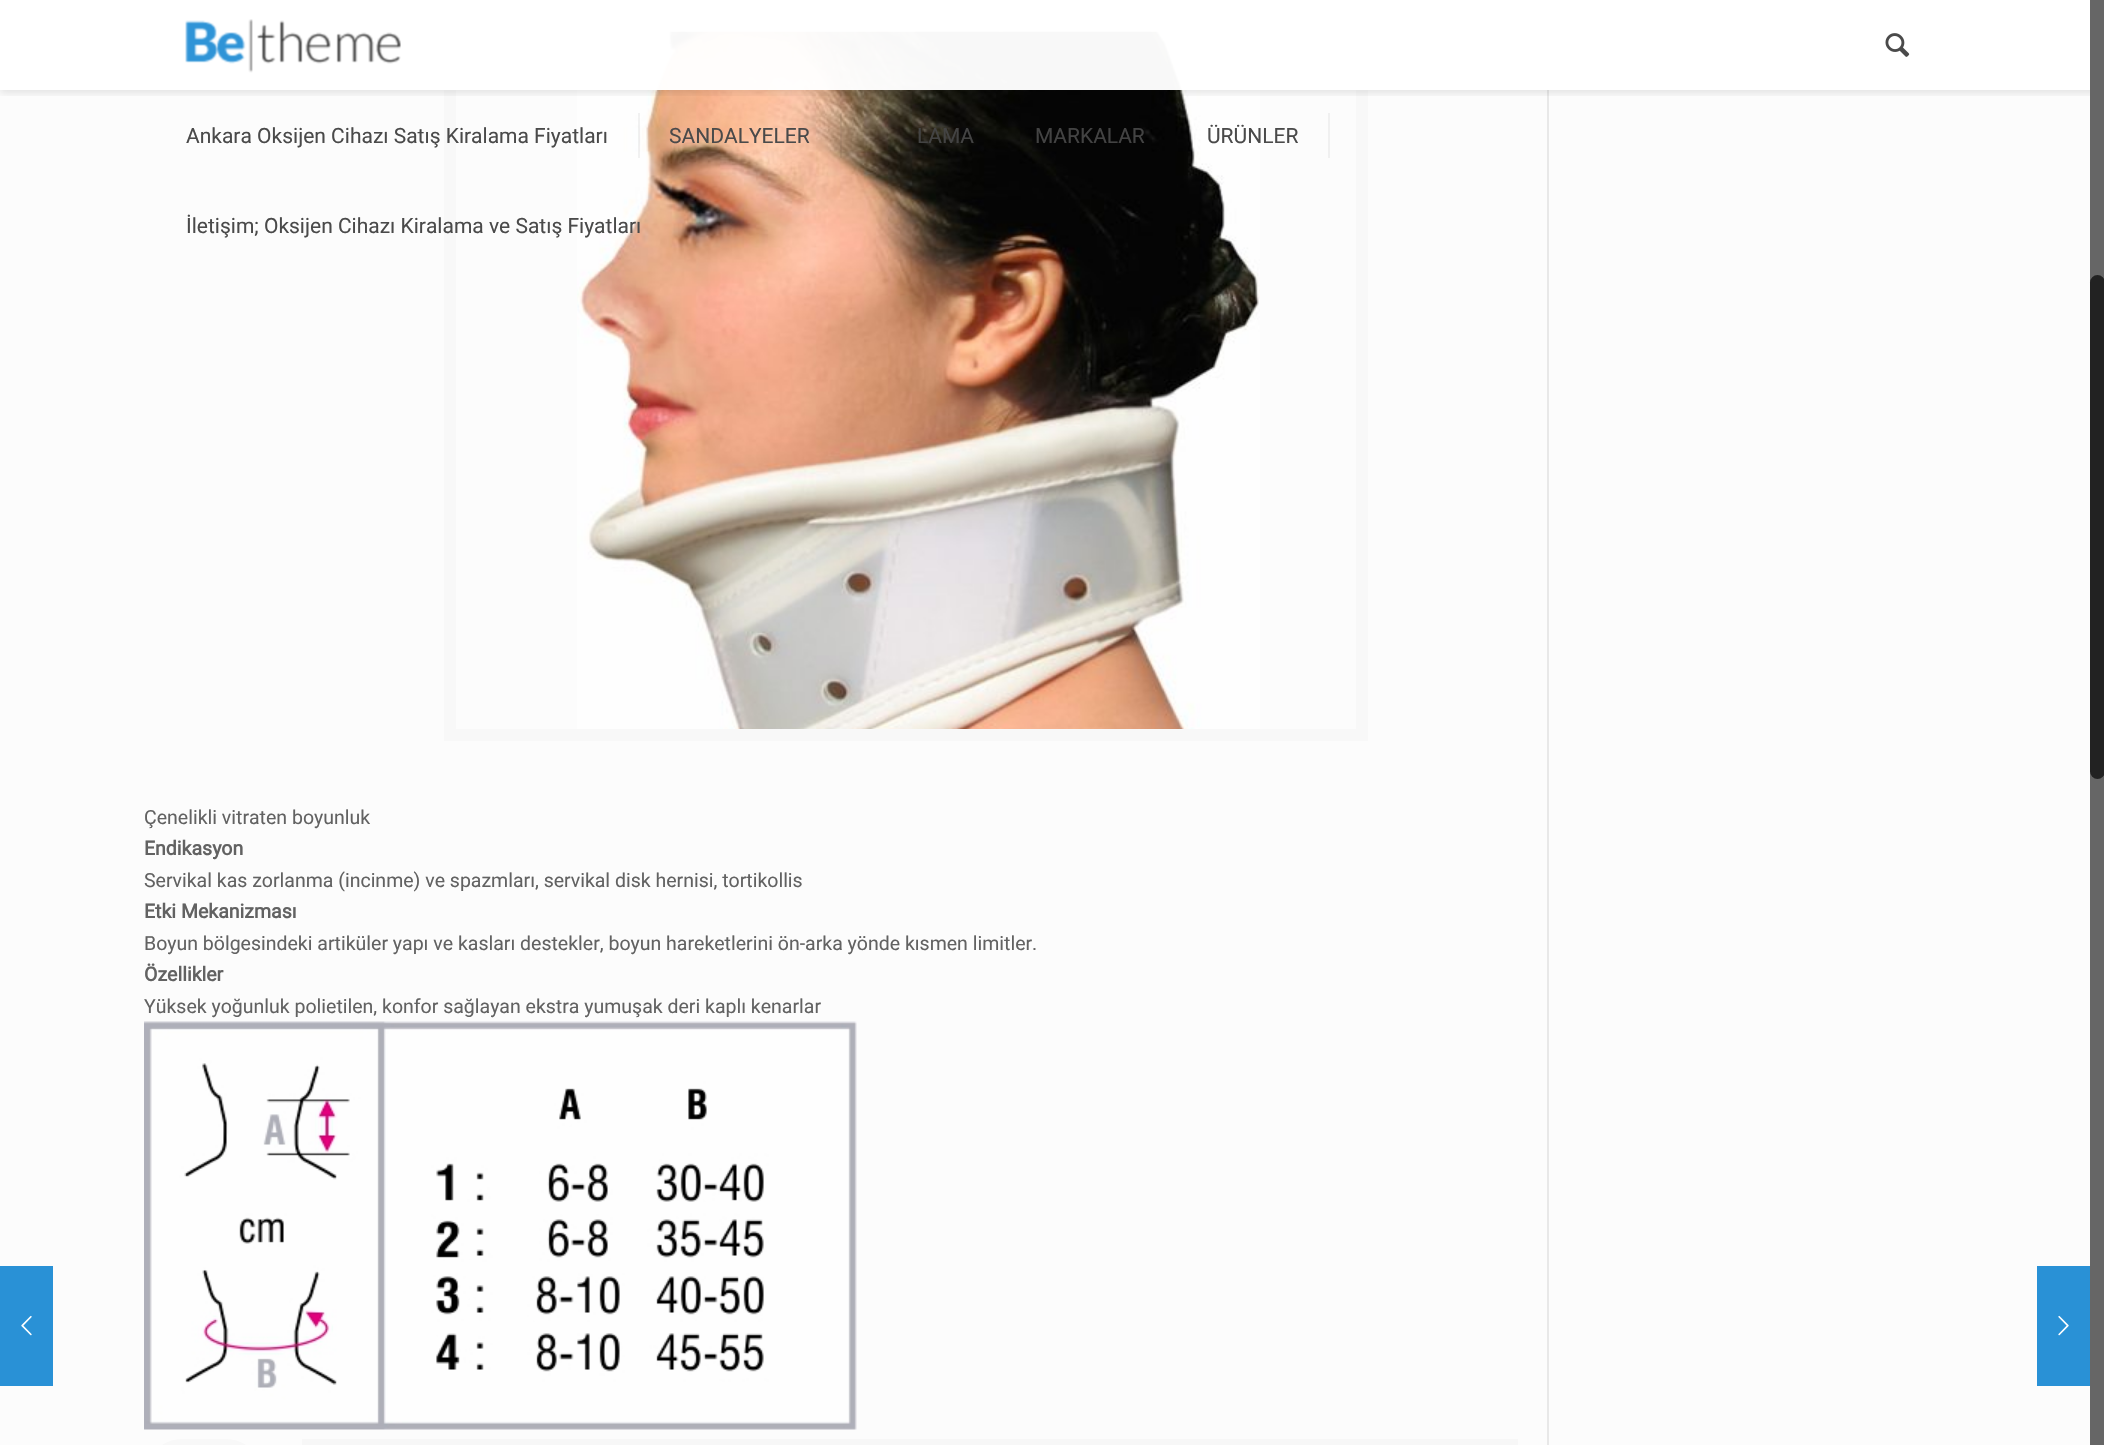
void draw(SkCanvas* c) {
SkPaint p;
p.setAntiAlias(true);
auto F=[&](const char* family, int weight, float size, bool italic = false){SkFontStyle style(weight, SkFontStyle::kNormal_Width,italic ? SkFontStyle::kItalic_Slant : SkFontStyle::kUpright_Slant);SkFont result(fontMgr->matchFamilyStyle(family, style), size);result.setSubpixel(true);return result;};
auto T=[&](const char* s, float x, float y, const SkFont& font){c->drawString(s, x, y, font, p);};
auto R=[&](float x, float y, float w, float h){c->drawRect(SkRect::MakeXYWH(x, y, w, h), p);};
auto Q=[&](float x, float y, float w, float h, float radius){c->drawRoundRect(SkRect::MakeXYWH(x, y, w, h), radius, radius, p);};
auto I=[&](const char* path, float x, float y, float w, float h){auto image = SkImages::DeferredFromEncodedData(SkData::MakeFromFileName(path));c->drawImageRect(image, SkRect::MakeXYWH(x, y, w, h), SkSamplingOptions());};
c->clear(0xfffcfcfc);
p.setColor(0xffffffff);
c->drawRect(SkRect::MakeXYWH(145,21,148,23),p);
p.setStroke(true);
p.setStrokeWidth(2);
p.setColor(0xffebebeb);
c->drawRect(SkRect::MakeXYWH(145,21,148,23),p);
p.setStrokeWidth(12);
p.setColor(0xfff8f8f8);
c->drawRect(SkRect::MakeXYWH(450,26,912,709),p);
I("3.png",577,31,683,698);
p.setStroke(false);
p.setColor(0xffe8e8e8);
R(1547,0,2,1445);
c->save();
c->clipRect(SkRect::MakeXYWH(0,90,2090,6));
p.setColor(0x1a000000);
p.setMaskFilter(SkMaskFilter::MakeBlur(kNormal_SkBlurStyle, 4));
c->drawRect(SkRect::MakeXYWH(0,3,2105,90),p);
p.setMaskFilter(nullptr);
c->restore();
p.setColor(0xf7ffffff);
R(0,0,2090,90);
I("1.png",1885,33,25,24);
I("2.png",185,19,216,54);
p.setColor(0x0d000000);
R(638,113,2,45);
auto f1 = F("Roboto",400,21);
p.setColor(0xff4a4a4a);
T("Ankara Oksijen Cihazı Satış Kiralama Fiyatları",186,143,f1);
p.setColor(0x0d000000);
R(840,113,2,45);
p.setColor(0xff4a4a4a);
T("SANDALYELER",669,143,f1);
p.setColor(0xff434343);
T("LAMA",917,143,f1);
T("MARKALAR",1035,143,f1);
p.setColor(0xfff0f0f0);
R(1328,113,2,45);
p.setColor(0xff4a4a4a);
T("ÜRÜNLER",1207,143,f1);
T("İletişim; Oksijen Cihazı Kiralama ve Satış Fiyatları",186,233,f1);
auto f2 = F("Roboto",400,19.5);
p.setColor(0xff626262);
T("Çenelikli vitraten boyunluk",144,824,f2);
auto f3 = F("Roboto",700,19.5);
T("Endikasyon",144,855,f3);
T("Servikal kas zorlanma (incinme) ve spazmları, servikal disk hernisi, tortikollis",144,887,f2);
T("Etki Mekanizması",144,918,f3);
T("Boyun bölgesindeki artiküler yapı ve kasları destekler, boyun hareketlerini ön-arka yönde kısmen limitler.",144,950,f2);
T("Özellikler",144,981,f3);
T("Yüksek yoğunluk polietilen, konfor sağlayan ekstra yumuşak deri kaplı kenarlar",144,1013,f2);
I("4.png",144,1021,713,409);
p.setStroke(true);
p.setColor(0xfff8f8f8);
c->drawRoundRect(SkRect::MakeXYWH(150,1445,108,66),54,54,p);
p.setStroke(false);
p.setColor(0xfff7f7f7);
R(302,1439,1216,6);
p.setColor(0xff666666);
R(2090,0,14,1445);
p.setColor(0xff222222);
Q(2090,275,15,504,7.5);
p.setColor(0xff2991d6);
R(0,1266,53,120);
I("5.png",21,1315,11,21);
R(2037,1266,53,120);
I("6.png",2058,1315,11,21);
}
